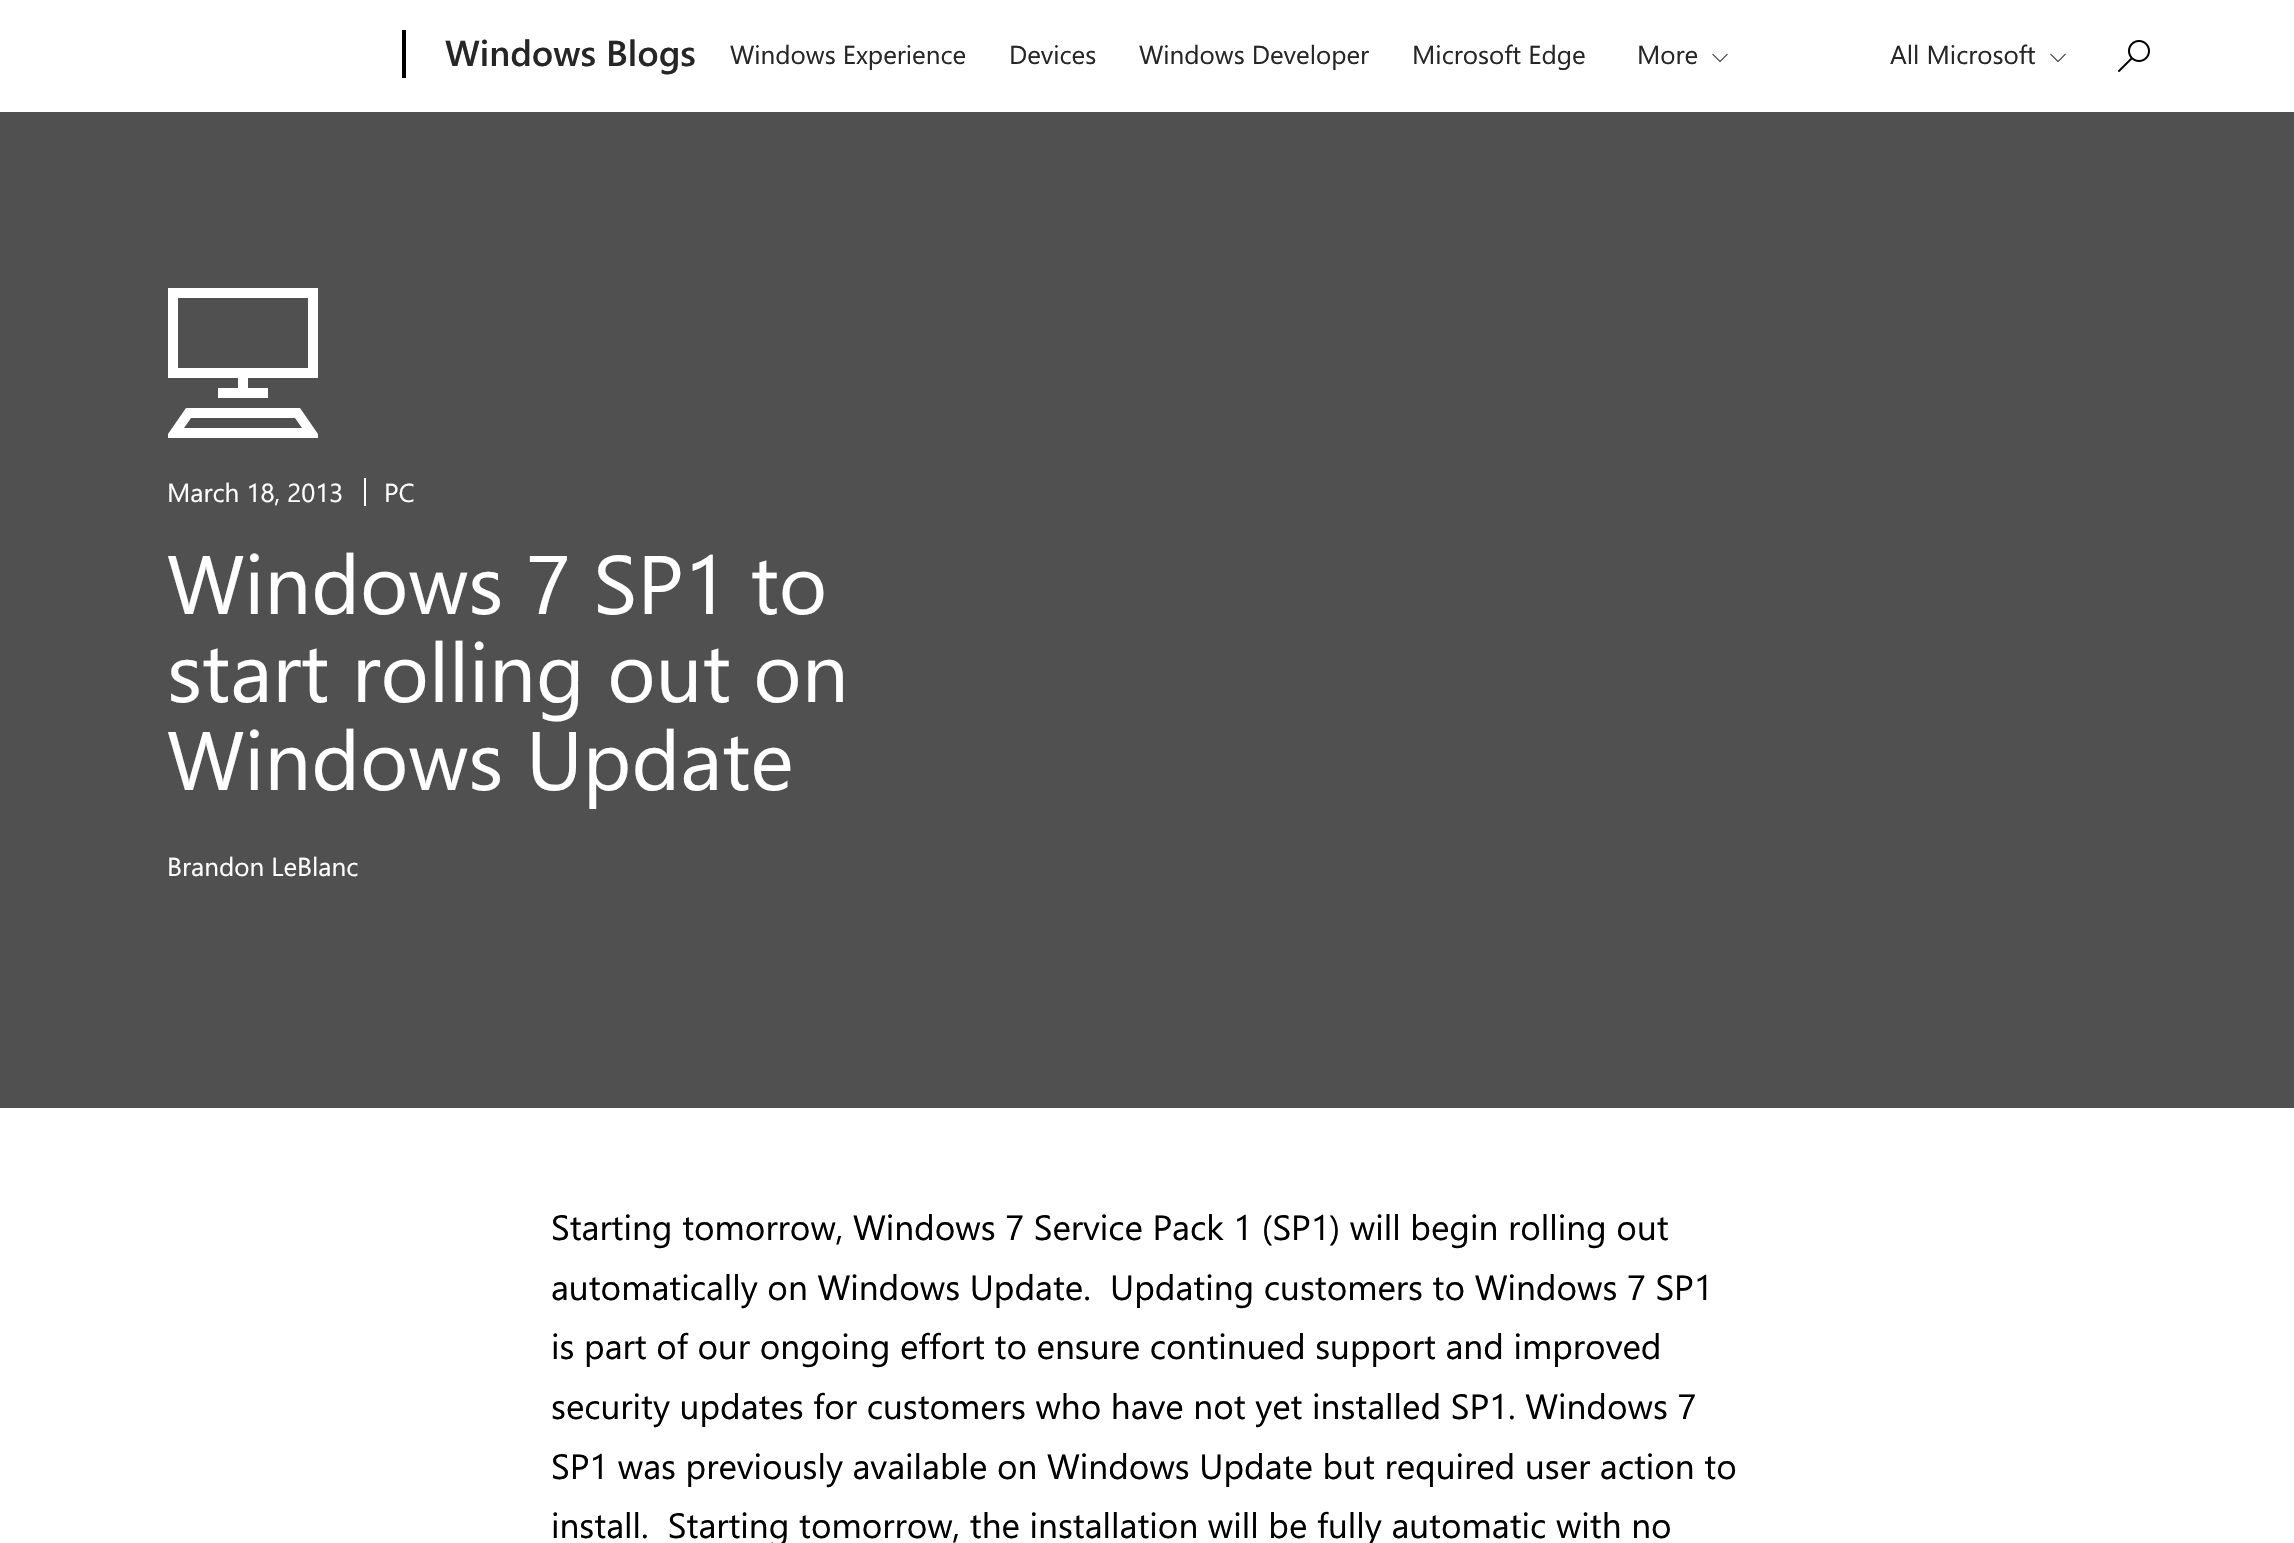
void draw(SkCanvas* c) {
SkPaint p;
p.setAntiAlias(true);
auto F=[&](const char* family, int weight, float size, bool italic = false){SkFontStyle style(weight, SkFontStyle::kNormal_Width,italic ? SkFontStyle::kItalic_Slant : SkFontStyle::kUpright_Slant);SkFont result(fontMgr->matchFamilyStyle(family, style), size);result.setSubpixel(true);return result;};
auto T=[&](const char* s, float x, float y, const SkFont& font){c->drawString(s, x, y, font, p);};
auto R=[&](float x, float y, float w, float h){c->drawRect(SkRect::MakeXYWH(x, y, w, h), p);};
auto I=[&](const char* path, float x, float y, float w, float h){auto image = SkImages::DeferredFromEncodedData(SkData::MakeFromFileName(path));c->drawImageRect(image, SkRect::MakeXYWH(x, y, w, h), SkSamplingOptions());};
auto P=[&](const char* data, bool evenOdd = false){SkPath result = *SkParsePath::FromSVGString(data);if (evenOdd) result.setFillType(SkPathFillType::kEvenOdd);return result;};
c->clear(0xffffffff);
p.setColor(0xff000000);
R(402,30,4,48);
auto f1 = F("Segoe UI",600,36);
p.setColor(0xff262626);
T("Windows Blogs",445,66,f1);
auto f2 = F("Segoe UI",400,26);
T("Windows Experience",730,64,f2);
T("Devices",1009,64,f2);
T("Windows Developer",1139,64,f2);
T("Microsoft Edge",1412,64,f2);
T("More",1637,64,f2);
I("1.png",1712,53,16,9);
T("All Microsoft",1890,64,f2);
I("1.png",2050,53,16,9);
I("2.png",2118,40,32,32);
p.setColor(0xff505050);
R(0,112,2294,996);
p.setColor(0xffffffff);
c->drawPath(P("M168 288h150v90h-70v10h20v10h-50v-10h20v-10h-70zm140 80v-70h-130v70zm-122 40h114l18 26v4h-150v-4zm-2 20h118l-7-10h-104z"),p);
T("March 18, 2013",167,502,f2);
R(364,478,2,28);
T("PC",384,502,f2);
auto f3 = F("Segoe UI",400,82.75);
T("Windows 7 SP1 to",167,614,f3);
T("start rolling out on",167,702,f3);
T("Windows Update",167,790,f3);
T("Brandon LeBlanc",167,876,f2);
auto f4 = F("Segoe UI",400,35.1);
p.setColor(0xff000000);
T("Starting tomorrow, Windows 7 Service Pack 1 (SP1) will begin rolling out",551,1240,f4);
T("automatically on Windows Update.  Updating customers to Windows 7 SP1",551,1300,f4);
T("is part of our ongoing effort to ensure continued support and improved",551,1359,f4);
T("security updates for customers who have not yet installed SP1. Windows 7",551,1419,f4);
T("SP1 was previously available on Windows Update but required user action to",551,1479,f4);
T("install.  Starting tomorrow, the installation will be fully automatic with no",551,1538,f4);
}
